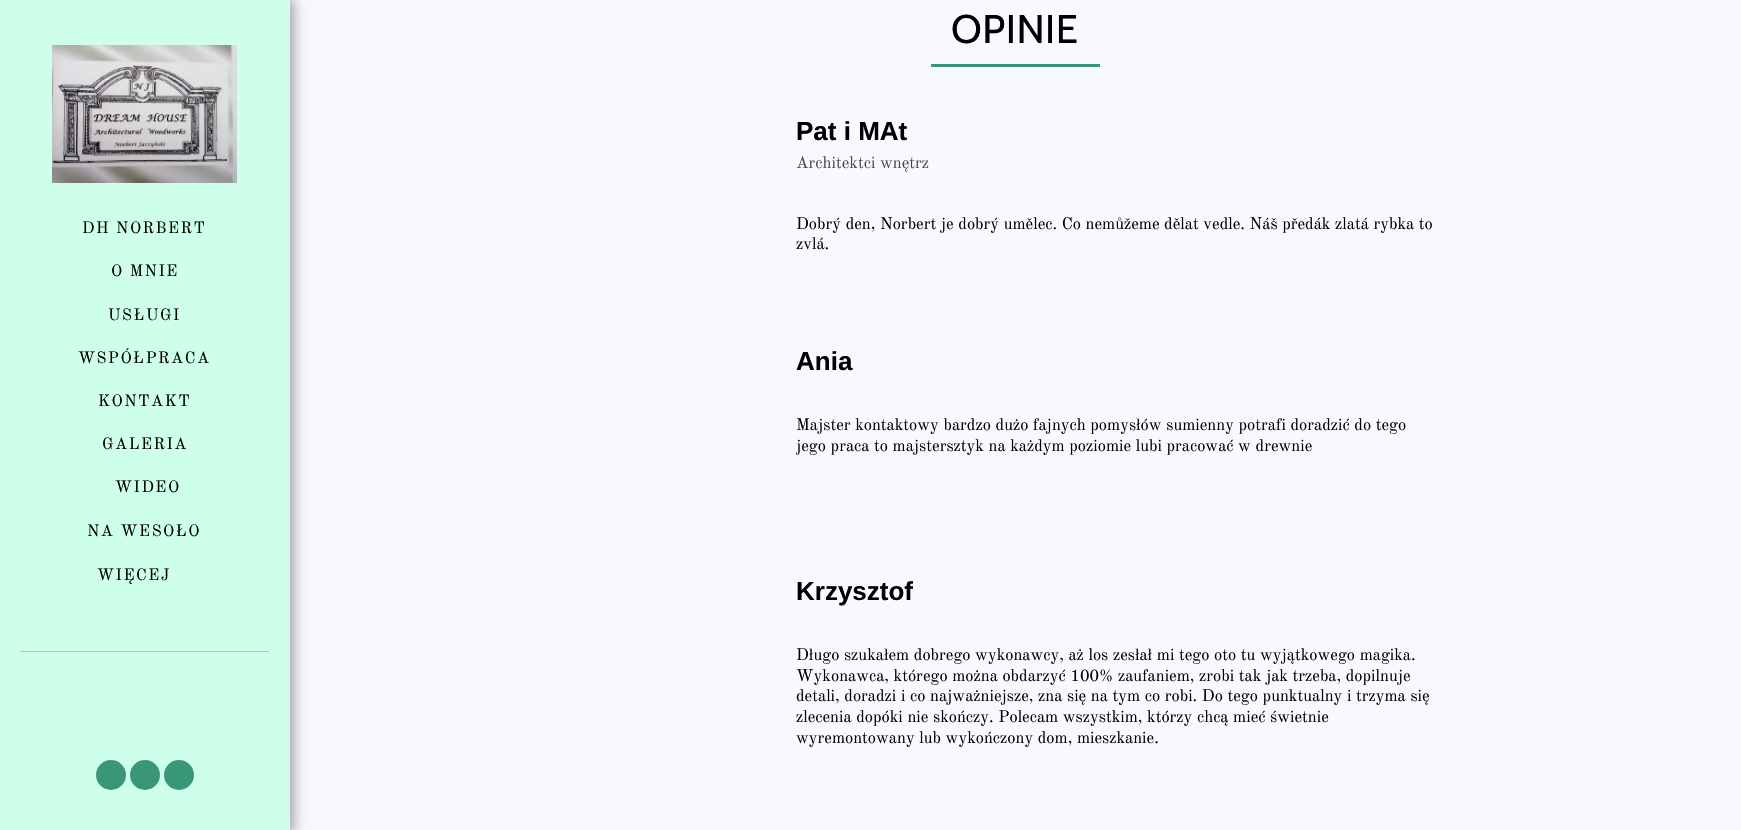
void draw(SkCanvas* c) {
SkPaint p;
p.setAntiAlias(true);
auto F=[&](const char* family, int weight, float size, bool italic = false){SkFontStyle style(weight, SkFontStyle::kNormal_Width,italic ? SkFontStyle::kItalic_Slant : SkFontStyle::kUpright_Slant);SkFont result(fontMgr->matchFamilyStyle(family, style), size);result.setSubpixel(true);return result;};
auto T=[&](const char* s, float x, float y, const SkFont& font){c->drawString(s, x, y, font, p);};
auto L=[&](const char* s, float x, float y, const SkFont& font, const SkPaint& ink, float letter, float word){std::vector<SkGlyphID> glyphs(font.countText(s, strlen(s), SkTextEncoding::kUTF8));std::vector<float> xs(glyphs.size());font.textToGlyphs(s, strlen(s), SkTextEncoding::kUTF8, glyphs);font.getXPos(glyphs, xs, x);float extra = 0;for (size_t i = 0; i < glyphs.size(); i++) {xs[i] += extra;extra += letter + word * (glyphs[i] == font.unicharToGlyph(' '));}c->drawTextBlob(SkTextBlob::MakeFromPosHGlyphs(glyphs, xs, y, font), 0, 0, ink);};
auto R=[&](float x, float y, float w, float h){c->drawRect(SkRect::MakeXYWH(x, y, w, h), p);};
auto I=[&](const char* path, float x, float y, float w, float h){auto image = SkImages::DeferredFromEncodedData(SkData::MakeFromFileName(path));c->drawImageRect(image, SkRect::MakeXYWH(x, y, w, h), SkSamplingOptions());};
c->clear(0xfff8f8ff);
p.setColor(0x59000000);
p.setMaskFilter(SkMaskFilter::MakeBlur(kNormal_SkBlurStyle, 6));
c->drawRect(SkRect::MakeXYWH(0,-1,294,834),p);
p.setMaskFilter(nullptr);
p.setColor(0xffcdffeb);
R(0,0,290,830);
I("1.png",52,45,185,138);
auto f1 = F("Old Standard TT",400,16);
p.setColor(0xff000000);
L("DH NORBERT",82,233,f1,p,1.5,0);
L("O MNIE",111,276,f1,p,1.5,0);
L("USŁUGI",108,320,f1,p,1.5,0);
L("WSPÓŁPRACA",78,363,f1,p,1.5,0);
L("KONTAKT",98,406,f1,p,1.5,0);
L("GALERIA",102,449,f1,p,1.5,0);
L("WIDEO",115,492,f1,p,1.5,0);
L("NA WESOŁO",87,536,f1,p,1.5,0);
L("WIĘCEJ",97,580,f1,p,1.5,0);
p.setColor(0xffa4ccbc);
R(20,651,249,1);
p.setColor(0xff3a9679);
c->drawCircle(111,775,15,p);
c->drawCircle(145,775,15,p);
c->drawCircle(179,775,15,p);
R(931,64,169,3);
auto f2 = F("Cabin",400,40);
p.setColor(0xff000000);
L("OPINIE",951,43,f2,p,.5,0);
auto f3 = F("Liberation Sans",700,26);
T("Pat i MAt",796,140,f3);
auto f4 = F("Old Standard TT",400,16.5);
p.setColor(0xff4a4a4d);
T("Architektci wnętrz",796,168,f4);
p.setColor(0xff000000);
T("Dobrý den, Norbert je dobrý umělec. Co nemůžeme dělat vedle. Náš předák zlatá rybka to",796,229,f4);
T("zvlá.",796,249,f4);
T("Ania",796,370,f3);
T("Majster kontaktowy bardzo dużo fajnych pomysłów sumienny potrafi doradzić do tego",796,430,f4);
c->save();
c->clipRect(SkRect::MakeXYWH(796,416,640,41));
T("jego praca to majstersztyk na każdym poziomie lubi pracować w drewnie",796,451,f4);
c->restore();
T("Krzysztof",796,600,f3);
T("Długo szukałem dobrego wykonawcy, aż los zesłał mi tego oto tu wyjątkowego magika.",796,660,f4);
T("Wykonawca, którego można obdarzyć 100% zaufaniem, zrobi tak jak trzeba, dopilnuje",796,681,f4);
T("detali, doradzi i co najważniejsze, zna się na tym co robi. Do tego punktualny i trzyma się",796,701,f4);
T("zlecenia dopóki nie skończy. Polecam wszystkim, którzy chcą mieć świetnie",796,722,f4);
T("wyremontowany lub wykończony dom, mieszkanie.",796,743,f4);
}
